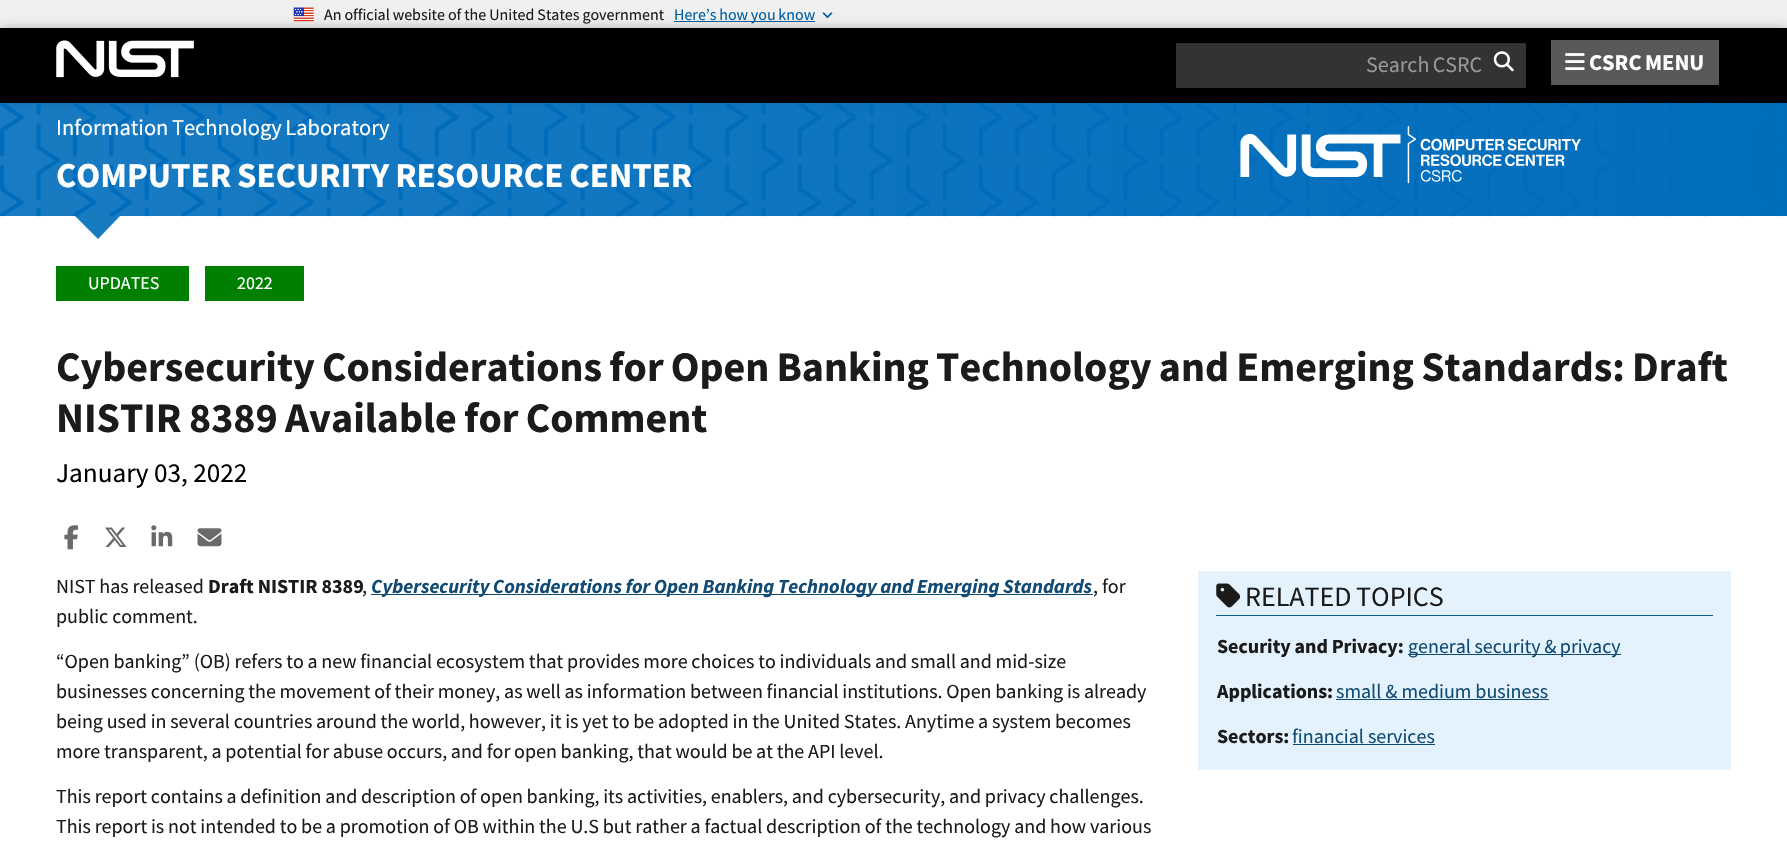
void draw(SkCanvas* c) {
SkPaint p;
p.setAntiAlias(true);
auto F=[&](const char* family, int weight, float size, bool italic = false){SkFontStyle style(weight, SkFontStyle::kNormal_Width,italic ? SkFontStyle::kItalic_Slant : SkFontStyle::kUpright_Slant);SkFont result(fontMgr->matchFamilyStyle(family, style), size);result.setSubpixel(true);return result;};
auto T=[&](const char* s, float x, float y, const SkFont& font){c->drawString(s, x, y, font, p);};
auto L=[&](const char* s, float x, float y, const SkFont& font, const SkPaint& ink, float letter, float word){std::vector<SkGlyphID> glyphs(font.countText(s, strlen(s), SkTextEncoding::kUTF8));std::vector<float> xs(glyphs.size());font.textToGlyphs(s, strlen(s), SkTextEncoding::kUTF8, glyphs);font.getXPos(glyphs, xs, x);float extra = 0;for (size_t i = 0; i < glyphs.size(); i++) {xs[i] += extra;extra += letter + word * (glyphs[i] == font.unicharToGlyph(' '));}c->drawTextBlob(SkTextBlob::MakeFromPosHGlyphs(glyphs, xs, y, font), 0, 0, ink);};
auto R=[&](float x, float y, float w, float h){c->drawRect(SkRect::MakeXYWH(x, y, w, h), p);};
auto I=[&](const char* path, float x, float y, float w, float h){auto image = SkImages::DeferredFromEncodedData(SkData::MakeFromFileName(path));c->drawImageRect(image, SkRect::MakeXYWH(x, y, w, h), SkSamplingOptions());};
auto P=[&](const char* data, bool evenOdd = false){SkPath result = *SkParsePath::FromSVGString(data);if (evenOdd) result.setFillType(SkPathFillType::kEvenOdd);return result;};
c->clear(0xffffffff);
p.setColor(0xfff0f0f0);
R(0,0,1787,28);
I("1.png",293,7,21,15);
auto f1 = F("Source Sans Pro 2",400,16);
p.setColor(0xff1b1b1b);
L("An official website of the United States government",324,20,f1,p,0,-.25);
p.setColor(0xff005ea2);
R(674,21,141,1);
L("Here’s how you know",674,20,f1,p,0,-.5);
I("2.png",822,12,11,7);
p.setColor(0x5c000000);
p.setMaskFilter(SkMaskFilter::MakeBlur(kNormal_SkBlurStyle, 6));
c->drawRect(SkRect::MakeXYWH(0,30,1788,75),p);
p.setMaskFilter(nullptr);
p.setColor(0xff000000);
R(0,28,1787,75);
I("3.png",56,40,138,38);
p.setColor(0xff333333);
R(1176,44,350,44);
p.setColor(0xff2f2f2f);
R(1176,43,350,1);
auto f2 = F("Source Sans Pro",400,22);
p.setColor(0xff999999);
L("Search CSRC",1366,72,f2,p,0,-1);
I("4.png",1493,51,21,21);
p.setColor(0xff595959);
R(1551,40,168,45);
I("5.png",1565,53,20,17);
auto f3 = F("Source Sans Pro",700,22.5);
p.setColor(0xffffffff);
L("CSRC MENU",1589,70,f3,p,0,-1);
{
const SkColor colors[] = {0xe6006dbc,0xff006dbc};
const float stops[] = {0,1};
const SkPoint ends[] = {{0,159}, {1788,159}};
p.setShader(SkGradientShader::MakeLinear(ends, colors, stops, 2, SkTileMode::kClamp));
p.setAlpha(255);
}
R(0,103,1787,113);
I("6.png",0,102,1781,115);
auto f4 = F("Source Sans Pro",400,22.5);
p.setShader(nullptr);
p.setColor(0xffffffff);
L("Information Technology Laboratory",56,135,f4,p,0,-1);
auto f5 = F("Source Sans Pro",700,35);
L("COMPUTER SECURITY RESOURCE CENTER",56,187,f5,p,0,-1);
I("7.png",1240,126,341,58);
p.setColor(0xff177bc2);
c->drawPath(P("M75 216h45l-22 23z"),p);
p.setColor(0xff008000);
R(56,266,133,35);
auto f6 = F("Source Sans Pro",400,18);
p.setColor(0xffffffff);
T("UPDATES",88,289,f6);
p.setColor(0xff008000);
R(205,266,99,35);
p.setColor(0xffffffff);
T("2022",237,289,f6);
auto f7 = F("Source Sans Pro",700,42);
p.setColor(0xff1b1b1b);
L("Cybersecurity Considerations for Open Banking Technology and Emerging Standards: Draft",56,381,f7,p,0,-1.25);
L("NISTIR 8389 Available for Comment",56,432,f7,p,0,-1);
auto f8 = F("Source Sans Pro",400,27.25);
p.setColor(0xff000000);
T("January 03, 2022",56,482,f8);
I("8.png",64,525,15,25);
I("9.png",105,527,22,20);
I("10.png",151,525,22,22);
I("11.png",197,528,25,19);
auto f9 = F("Source Sans Pro",400,20);
p.setColor(0xff1b1b1b);
L("NIST has released",56,593,f9,p,0,-.25);
auto f10 = F("Source Sans Pro",700,20);
T("Draft NISTIR 8389",208,593,f10);
T(",",362,593,f9);
p.setColor(0xff114b73);
R(371,594,722,1);
auto f11 = F("Source Sans Pro",700,20,true);
L("Cybersecurity Considerations for Open Banking Technology and Emerging Standards",371,593,f11,p,0,-.5);
p.setColor(0xff1b1b1b);
T(", for",1093,593,f9);
T("public comment.",56,623,f9);
L("“Open banking” (OB) refers to a new financial ecosystem that provides more choices to individuals and small and mid-size",56,668,f9,p,0,-.25);
L("businesses concerning the movement of their money, as well as information between financial institutions. Open banking is already",56,698,f9,p,0,-.25);
L("being used in several countries around the world, however, it is yet to be adopted in the United States. Anytime a system becomes",56,728,f9,p,0,-.25);
L("more transparent, a potential for abuse occurs, and for open banking, that would be at the API level.",56,758,f9,p,0,-.25);
L("This report contains a definition and description of open banking, its activities, enablers, and cybersecurity, and privacy challenges.",56,803,f9,p,0,-.25);
L("This report is not intended to be a promotion of OB within the U.S but rather a factual description of the technology and how various",56,833,f9,p,0,-.2);
p.setColor(0xffe3f2fc);
R(1198,571,533,199);
p.setColor(0xff135c91);
R(1216,615,497,1);
I("12.png",1216,583,25,25);
auto f12 = F("Source Sans Pro",400,28);
p.setColor(0xff1b1b1b);
L("RELATED TOPICS",1245,606,f12,p,0,-1);
L("Security and Privacy:",1217,653,f10,p,0,-.25);
p.setColor(0xff114b73);
R(1408,654,213,1);
L("general security & privacy",1408,653,f9,p,0,-.5);
p.setColor(0xff1b1b1b);
T("Applications:",1217,698,f10);
p.setColor(0xff114b73);
T("small & medium business",1336,698,f9);
R(1336,699,213,1);
p.setColor(0xff1b1b1b);
T("Sectors:",1217,743,f10);
p.setColor(0xff114b73);
T("financial services",1292,743,f9);
R(1293,744,142,1);
}
